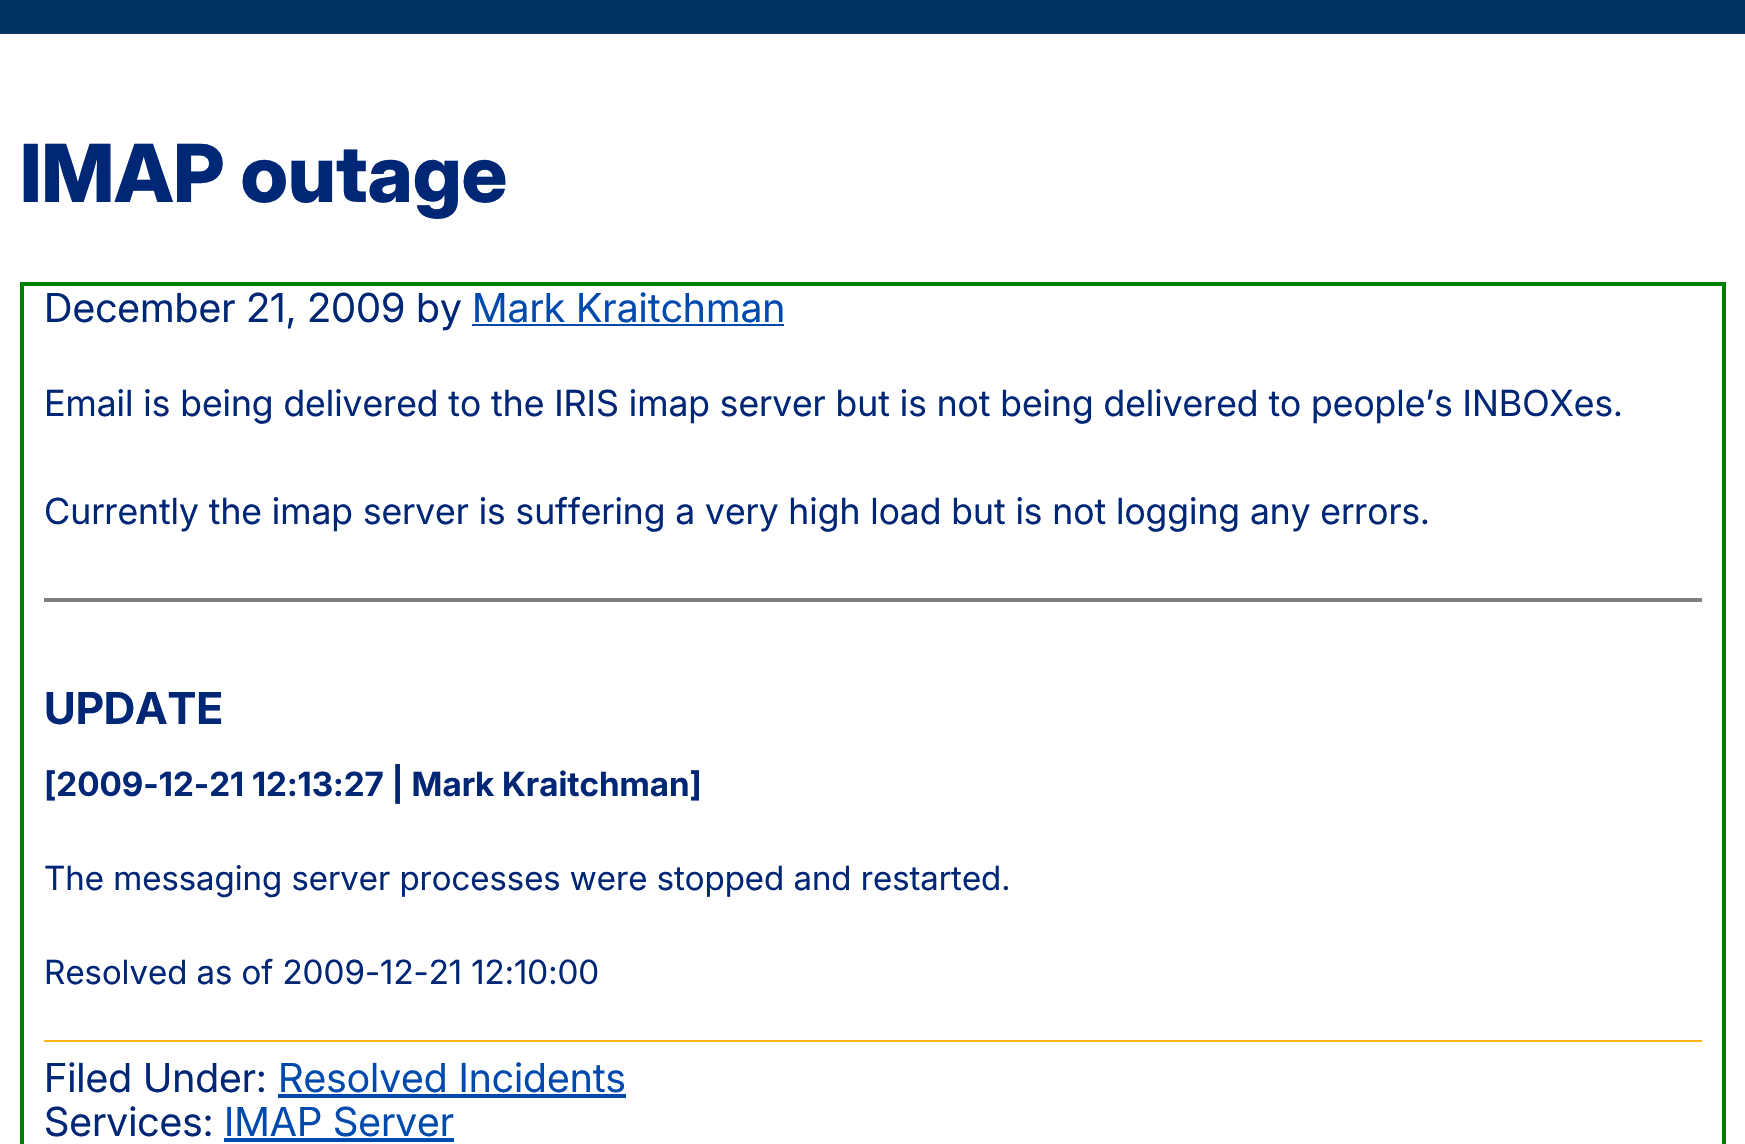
void draw(SkCanvas* c) {
SkPaint p;
p.setAntiAlias(true);
auto F=[&](const char* family, int weight, float size, bool italic = false){SkFontStyle style(weight, SkFontStyle::kNormal_Width,italic ? SkFontStyle::kItalic_Slant : SkFontStyle::kUpright_Slant);SkFont result(fontMgr->matchFamilyStyle(family, style), size);result.setSubpixel(true);return result;};
auto T=[&](const char* s, float x, float y, const SkFont& font){c->drawString(s, x, y, font, p);};
auto R=[&](float x, float y, float w, float h){c->drawRect(SkRect::MakeXYWH(x, y, w, h), p);};
c->clear(0xffffffff);
p.setColor(0xff003262);
R(0,0,1745,34);
auto f1 = F("Inter",800,80);
p.setColor(0xff002676);
T("IMAP outage",20,202,f1);
p.setStroke(true);
p.setStrokeWidth(4);
p.setColor(0xff008000);
c->drawRect(SkRect::MakeXYWH(22,284,1702,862),p);
auto f2 = F("Inter",400,40);
p.setStroke(false);
p.setColor(0xff002676);
T("December 21, 2009 by",44,322,f2);
p.setColor(0xff004aae);
T("Mark Kraitchman",472,322,f2);
R(472,324,312,2);
auto f3 = F("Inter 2",400,36);
p.setColor(0xff002676);
T("Email is being delivered to the IRIS imap server but is not being delivered to people’s INBOXes.",44,416,f3);
T("Currently the imap server is suffering a very high load but is not logging any errors.",44,524,f3);
p.setColor(0xff808080);
R(44,598,1658,4);
auto f4 = F("Inter",700,44);
p.setColor(0xff002676);
T("UPDATE",44,724,f4);
auto f5 = F("Inter 2",700,33.3);
T("[2009-12-21 12:13:27 | Mark Kraitchman]",44,796,f5);
auto f6 = F("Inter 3",400,33.3);
T("The messaging server processes were stopped and restarted.",44,890,f6);
T("Resolved as of 2009-12-21 12:10:00",44,984,f6);
p.setColor(0xfffdb515);
R(44,1040,1658,2);
auto f7 = F("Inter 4",400,40);
p.setColor(0xff002676);
T("Filed Under:",44,1092,f7);
p.setColor(0xff004aae);
T("Resolved Incidents",278,1092,f7);
R(278,1094,348,4);
p.setColor(0xff002676);
T("Services:",44,1136,f7);
p.setColor(0xff004aae);
T("IMAP Server",224,1136,f7);
R(224,1138,230,4);
}
